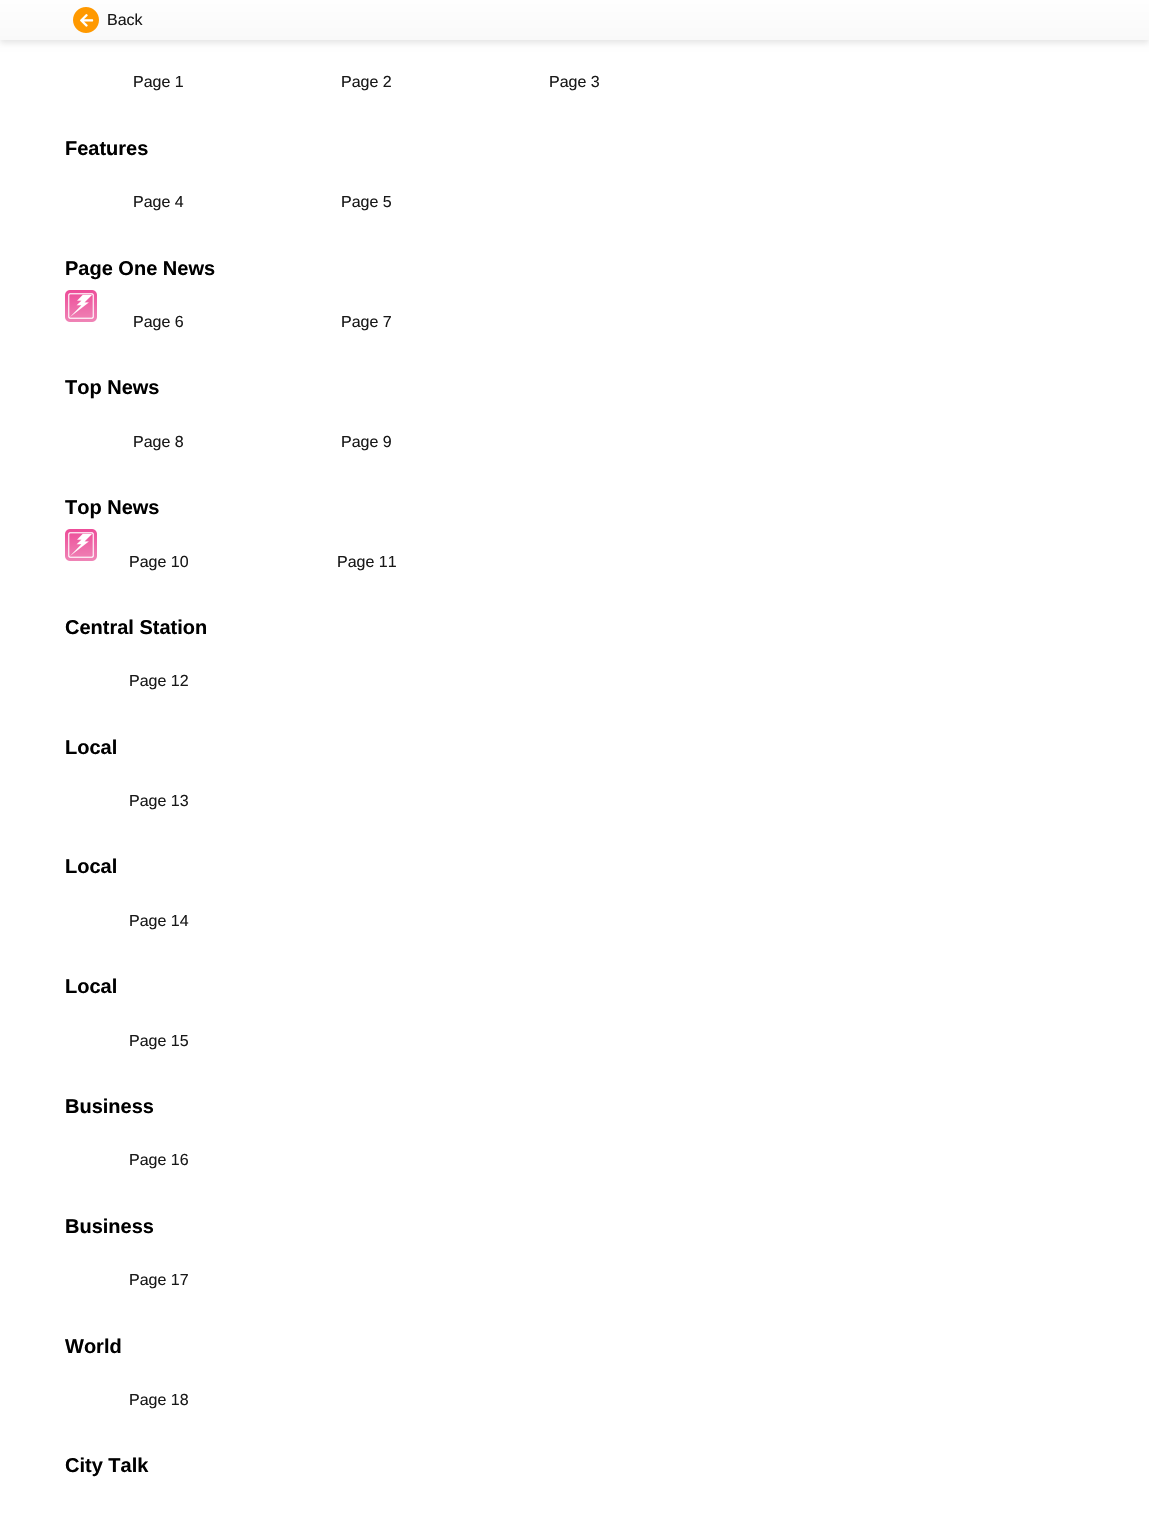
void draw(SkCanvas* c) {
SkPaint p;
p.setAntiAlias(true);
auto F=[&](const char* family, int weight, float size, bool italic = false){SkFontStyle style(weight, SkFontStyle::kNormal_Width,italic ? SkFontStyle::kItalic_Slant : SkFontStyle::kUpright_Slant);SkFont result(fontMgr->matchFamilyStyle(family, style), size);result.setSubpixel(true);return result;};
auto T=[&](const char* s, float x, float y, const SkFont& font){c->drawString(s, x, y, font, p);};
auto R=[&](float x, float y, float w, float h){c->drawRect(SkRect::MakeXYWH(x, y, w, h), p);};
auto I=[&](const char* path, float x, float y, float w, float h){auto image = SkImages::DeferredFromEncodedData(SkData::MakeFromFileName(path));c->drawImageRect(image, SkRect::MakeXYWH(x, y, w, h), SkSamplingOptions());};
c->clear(0xffffffff);
p.setColor(0x1a000000);
p.setMaskFilter(SkMaskFilter::MakeBlur(kNormal_SkBlurStyle, 3));
c->drawRect(SkRect::MakeXYWH(0,3,1149,40),p);
p.setMaskFilter(nullptr);
{
const SkColor colors[] = {0xfffefefe,0xfff9f9f9};
const float stops[] = {0,1};
const SkPoint ends[] = {{575,0}, {575,40}};
p.setShader(SkGradientShader::MakeLinear(ends, colors, stops, 2, SkTileMode::kClamp));
p.setAlpha(255);
}
R(0,0,1149,40);
I("1.png",73,7,26,26);
auto f1 = F("Liberation Sans",400,16);
p.setShader(nullptr);
p.setColor(0xff191919);
T("Back",107,25,f1);
T("Page 1",133,87,f1);
T("Page 2",341,87,f1);
T("Page 3",549,87,f1);
auto f2 = F("Liberation Sans",700,20);
p.setColor(0xff000000);
T("Features",65,155,f2);
p.setColor(0xff191919);
T("Page 4",133,207,f1);
T("Page 5",341,207,f1);
p.setColor(0xff000000);
T("Page One News",65,275,f2);
I("2.png",65,290,32,32);
p.setColor(0xff191919);
T("Page 6",133,327,f1);
T("Page 7",341,327,f1);
p.setColor(0xff000000);
T("Top News",65,394,f2);
p.setColor(0xff191919);
T("Page 8",133,447,f1);
T("Page 9",341,447,f1);
p.setColor(0xff000000);
T("Top News",65,514,f2);
I("2.png",65,529,32,32);
p.setColor(0xff191919);
T("Page 10",129,567,f1);
T("Page 11",337,567,f1);
p.setColor(0xff000000);
T("Central Station",65,634,f2);
p.setColor(0xff191919);
T("Page 12",129,686,f1);
p.setColor(0xff000000);
T("Local",65,754,f2);
p.setColor(0xff191919);
T("Page 13",129,806,f1);
p.setColor(0xff000000);
T("Local",65,873,f2);
p.setColor(0xff191919);
T("Page 14",129,926,f1);
p.setColor(0xff000000);
T("Local",65,993,f2);
p.setColor(0xff191919);
T("Page 15",129,1046,f1);
p.setColor(0xff000000);
T("Business",65,1113,f2);
p.setColor(0xff191919);
T("Page 16",129,1165,f1);
p.setColor(0xff000000);
T("Business",65,1233,f2);
p.setColor(0xff191919);
T("Page 17",129,1285,f1);
p.setColor(0xff000000);
T("World",65,1353,f2);
p.setColor(0xff191919);
T("Page 18",129,1405,f1);
p.setColor(0xff000000);
T("City Talk",65,1472,f2);
}
